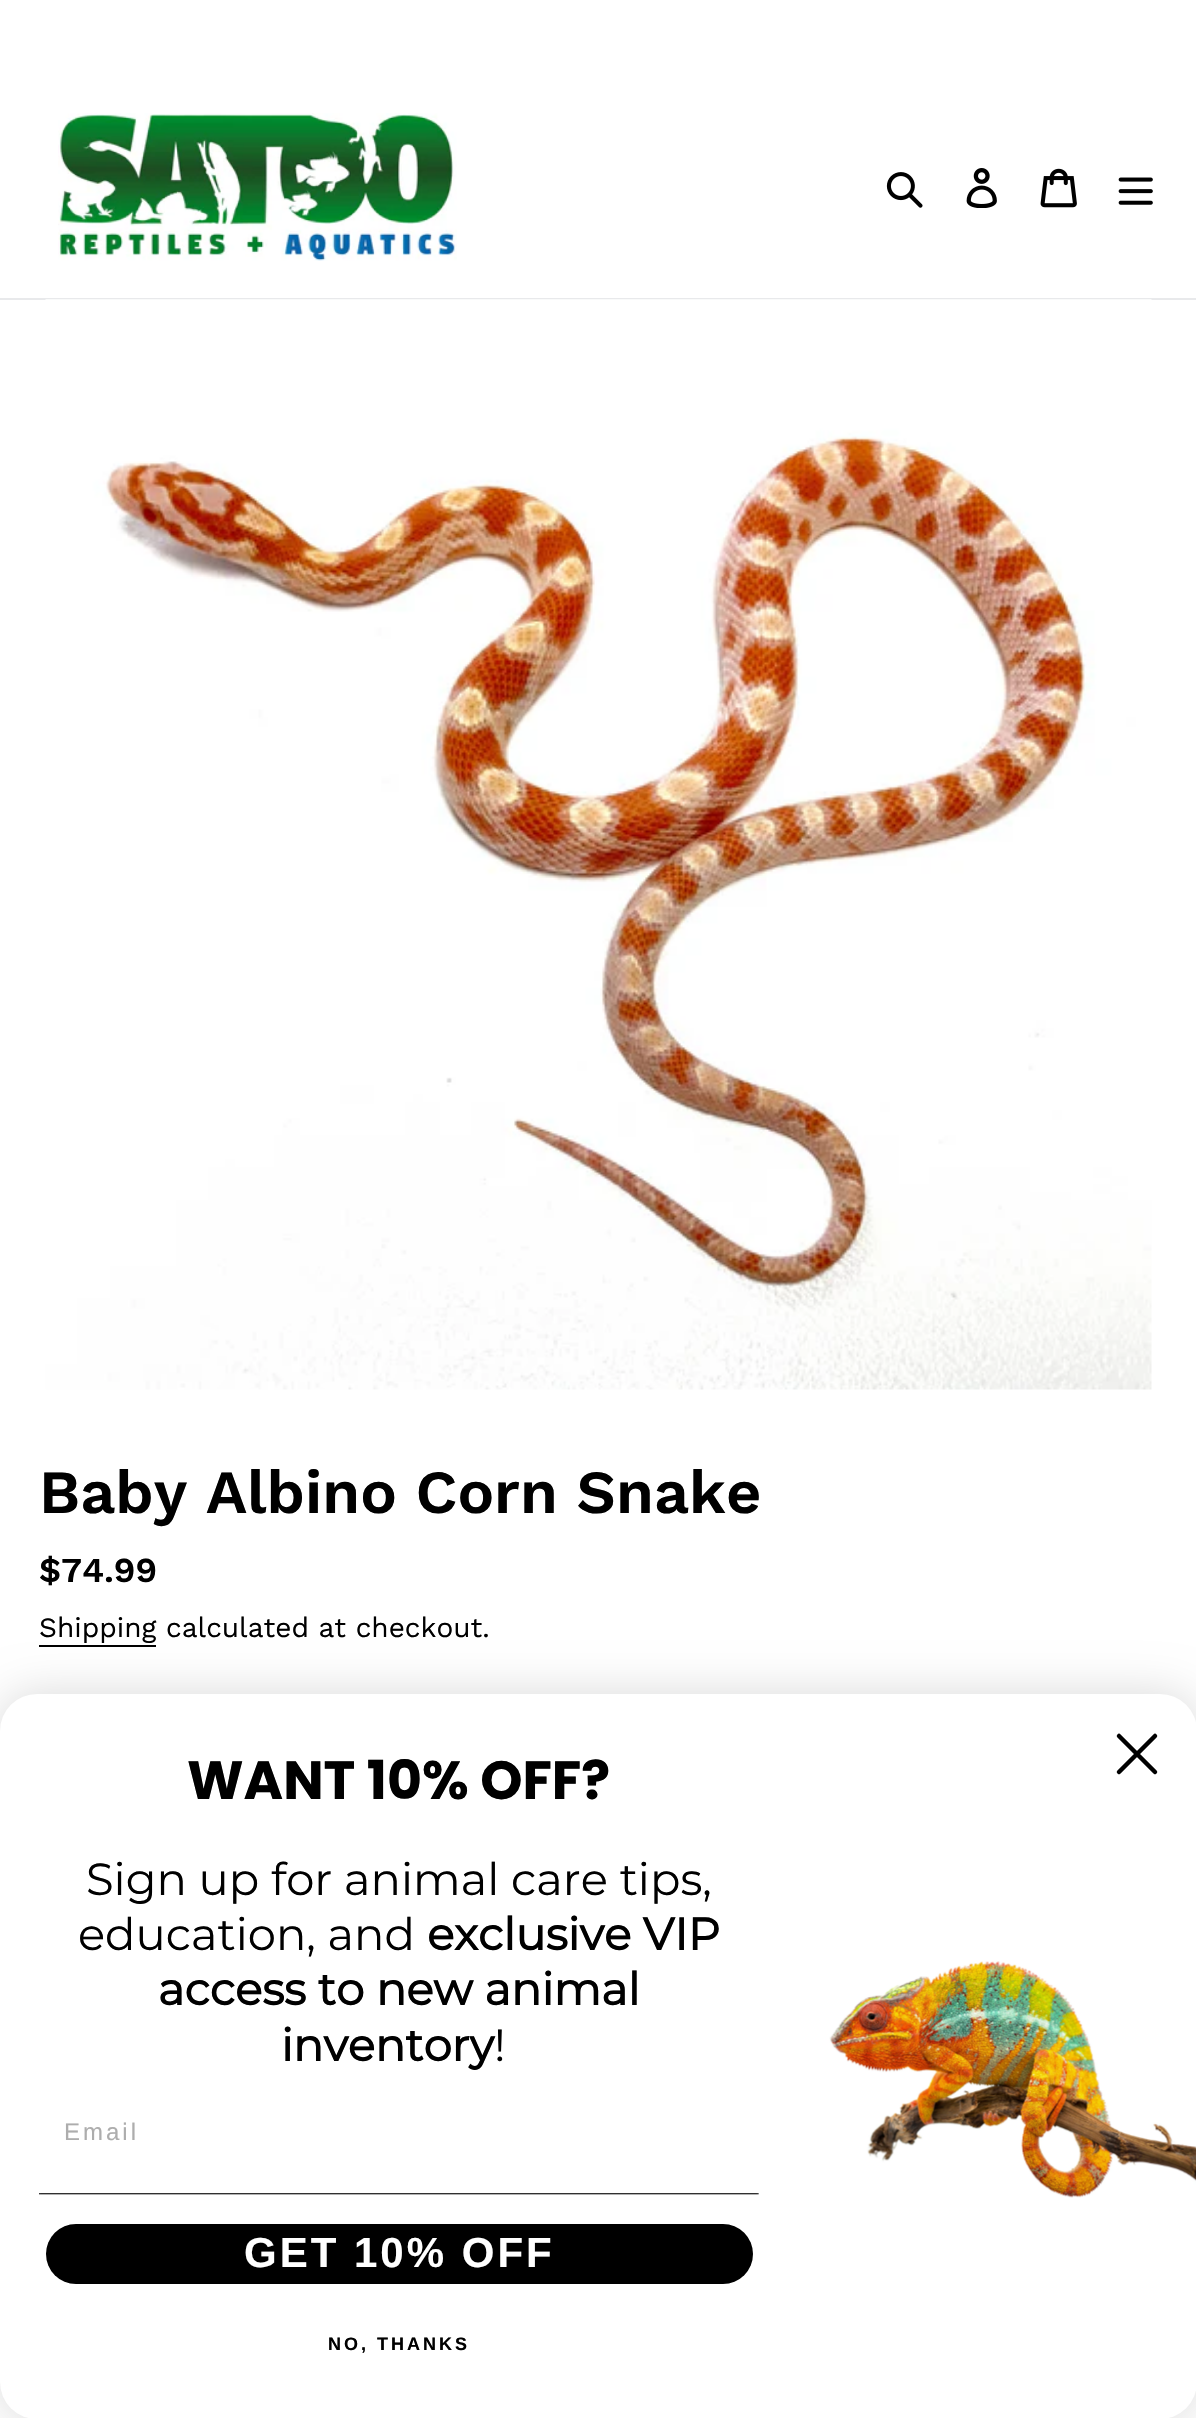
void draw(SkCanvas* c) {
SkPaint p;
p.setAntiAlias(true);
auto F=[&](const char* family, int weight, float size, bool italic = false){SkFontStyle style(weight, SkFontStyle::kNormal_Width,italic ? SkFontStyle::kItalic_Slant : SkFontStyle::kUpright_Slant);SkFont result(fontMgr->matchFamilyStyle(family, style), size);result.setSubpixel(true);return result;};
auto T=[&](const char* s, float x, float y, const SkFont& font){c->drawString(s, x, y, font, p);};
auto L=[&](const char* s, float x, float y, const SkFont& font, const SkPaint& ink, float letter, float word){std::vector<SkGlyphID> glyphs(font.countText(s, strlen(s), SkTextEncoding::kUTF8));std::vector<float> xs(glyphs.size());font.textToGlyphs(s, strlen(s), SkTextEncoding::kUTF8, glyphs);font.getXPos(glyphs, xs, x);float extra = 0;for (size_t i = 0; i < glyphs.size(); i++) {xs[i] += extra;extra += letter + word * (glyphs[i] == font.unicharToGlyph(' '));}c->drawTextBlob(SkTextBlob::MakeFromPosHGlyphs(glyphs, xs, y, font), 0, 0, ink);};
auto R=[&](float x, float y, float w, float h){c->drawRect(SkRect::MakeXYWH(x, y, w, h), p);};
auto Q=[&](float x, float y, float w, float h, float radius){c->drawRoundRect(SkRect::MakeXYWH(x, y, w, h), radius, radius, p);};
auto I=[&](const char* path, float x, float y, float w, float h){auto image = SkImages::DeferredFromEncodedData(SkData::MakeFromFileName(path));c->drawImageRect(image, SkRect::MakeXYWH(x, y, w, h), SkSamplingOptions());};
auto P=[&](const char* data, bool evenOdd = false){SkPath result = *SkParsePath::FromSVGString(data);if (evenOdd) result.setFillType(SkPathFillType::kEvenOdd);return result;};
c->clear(0xffffffff);
p.setColor(0xffe8e9eb);
R(0,298,1196,2);
I("1.png",58,113,399,148);
I("2.png",886,172,37,36);
I("3.png",966,168,31,40);
I("4.png",1040,168,37,40);
I("5.png",1118,177,35,28);
I("6.png",45,299,1107,1091);
auto f1 = F("Work Sans",600,61.25);
p.setColor(0xff000000);
T("Baby Albino Corn Snake",39,1513,f1);
auto f2 = F("Work Sans",600,35);
T("$74.99",39,1582,f2);
auto f3 = F("Work Sans",400,28);
T("Shipping calculated at checkout.",39,1637,f3);
R(39,1645,117,2);
p.setColor(0x26000000);
p.setMaskFilter(SkMaskFilter::MakeBlur(kNormal_SkBlurStyle, 22.5));
c->drawRoundRect(SkRect::MakeXYWH(0,1694,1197,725),37,37,p);
p.setMaskFilter(nullptr);
p.setColor(0xffffffff);
Q(0,1694,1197,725,37);
auto f4 = F("Poppins",700,53.75);
p.setColor(0xff000000);
T("WANT 10% OFF?",187,1799,f4);
auto f5 = F("Montserrat",100,44.9);
T("Sign up for animal care tips,",86,1895,f5);
T("education, and",78,1950,f5);
auto f6 = F("Montserrat",700,44.9);
T("exclusive VIP",427,1950,f6);
T("access to new animal",158,2005,f6);
T("inventory",281,2061,f6);
T("!",494,2061,f5);
auto f7 = F("Liberation Sans",400,24);
p.setColor(0xffadadad);
L("Email",64,2140,f7,p,3,0);
I("7.png",39,2193,720,2);
p.setColor(0xff000000);
Q(46,2224,707,60,30);
auto f8 = F("Liberation Sans",700,42);
p.setColor(0xffffffff);
L("GET 10% OFF",244,2267,f8,p,3,0);
auto f9 = F("Liberation Sans",700,18);
p.setColor(0xff000000);
L("NO, THANKS",328,2350,f9,p,3,0);
I("8.png",829,1961,367,237);
p.setStroke(true);
p.setStrokeWidth(4.5);
p.setStrokeCap(SkPaint::kRound_Cap);
p.setStrokeJoin(SkPaint::kRound_Join);
c->drawPath(P("M1119 1736l36 36m-36 0l36-36z"),p);
}
